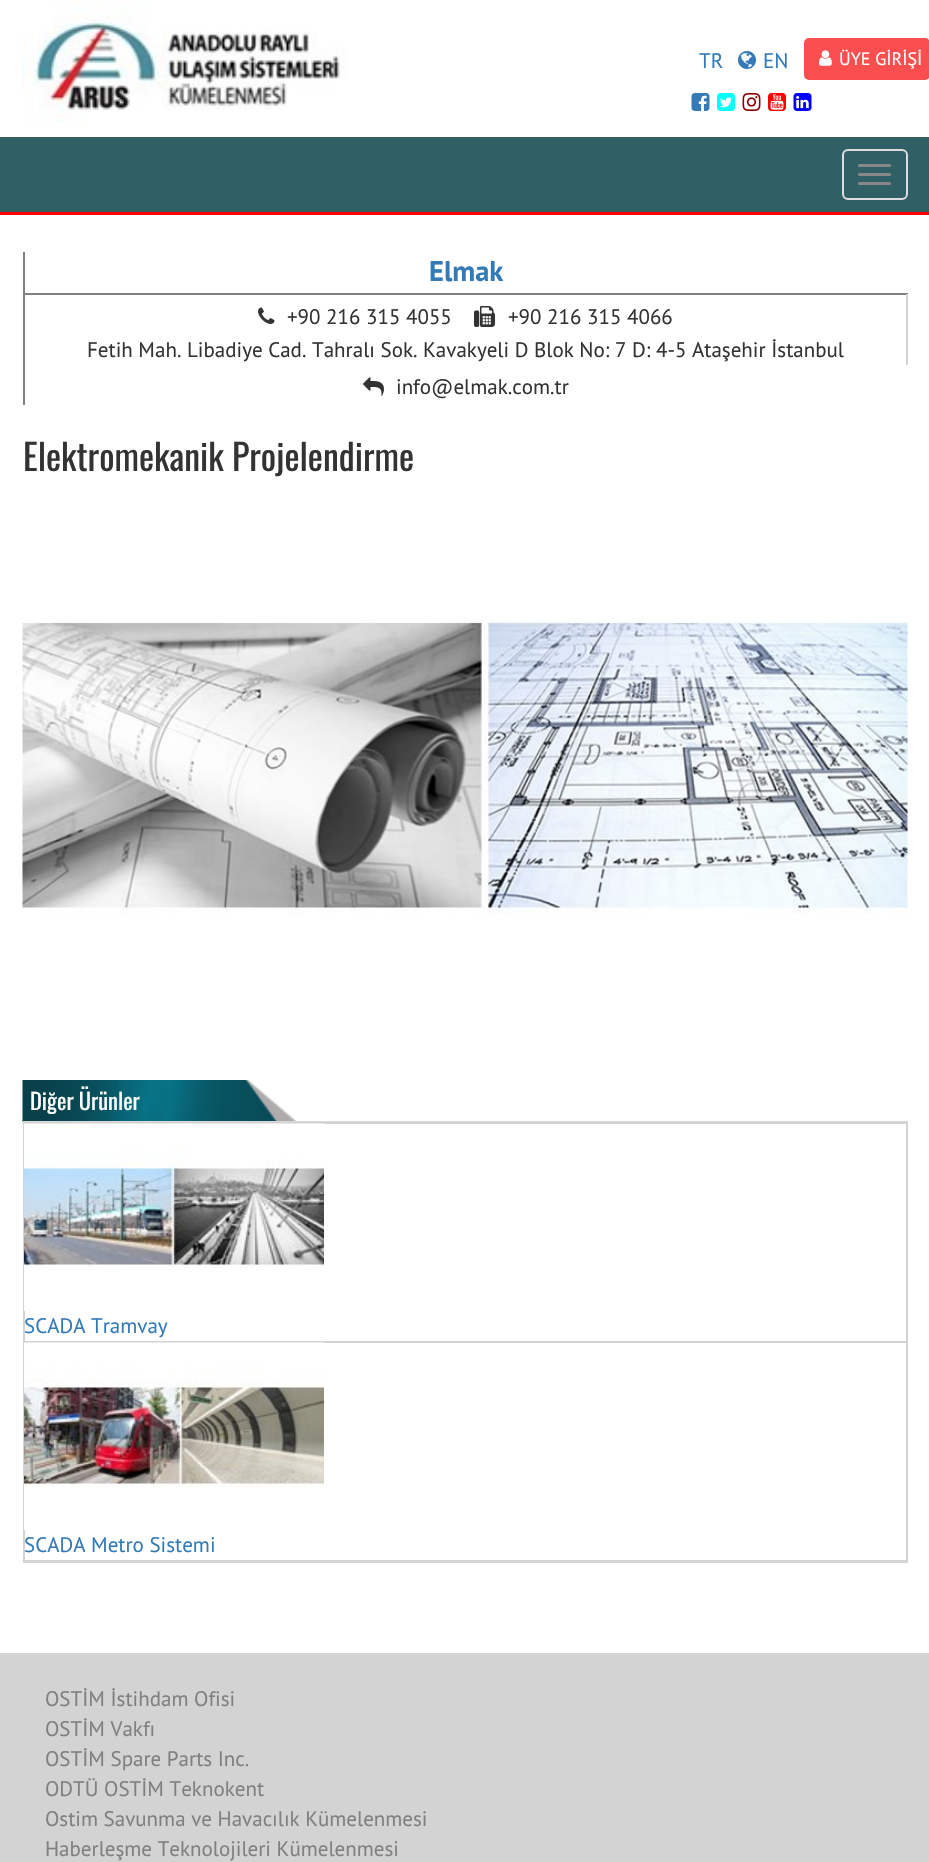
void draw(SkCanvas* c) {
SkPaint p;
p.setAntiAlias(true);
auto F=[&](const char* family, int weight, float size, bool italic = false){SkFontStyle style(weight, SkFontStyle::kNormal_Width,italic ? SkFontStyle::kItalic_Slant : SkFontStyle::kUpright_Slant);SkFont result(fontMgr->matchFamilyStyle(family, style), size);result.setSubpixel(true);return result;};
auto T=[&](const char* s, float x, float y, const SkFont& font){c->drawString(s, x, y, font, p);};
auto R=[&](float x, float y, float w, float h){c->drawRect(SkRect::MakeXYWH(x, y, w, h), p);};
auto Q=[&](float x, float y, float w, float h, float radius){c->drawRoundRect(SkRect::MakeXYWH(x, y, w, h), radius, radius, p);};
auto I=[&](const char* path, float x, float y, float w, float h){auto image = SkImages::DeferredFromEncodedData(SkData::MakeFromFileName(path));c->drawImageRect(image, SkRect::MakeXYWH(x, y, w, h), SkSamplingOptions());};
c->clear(0xffffffff);
I("1.png",22,0,326,125);
auto f1 = F("PT Sans",400,21);
p.setColor(0xff337ab7);
T("TR",699,68,f1);
I("2.png",738,51,18,18);
T("EN",763,68,f1);
p.setColor(0xfffb4f4f);
Q(804,38,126,42,5);
I("3.png",819,50,13,16);
auto f2 = F("PT Sans",400,18);
p.setColor(0xffffffff);
T("ÜYE GİRİŞİ",839,65,f2);
I("4.png",691,93,19,18);
I("5.png",717,93,18,18);
I("6.png",742,93,19,18);
I("7.png",768,93,18,18);
I("8.png",793,93,19,18);
p.setColor(0xff315f66);
R(0,137,929,75);
p.setColor(0xffff0000);
R(0,212,929,3);
p.setStroke(true);
p.setStrokeWidth(2);
p.setColor(0xffdddddd);
c->drawRoundRect(SkRect::MakeXYWH(843,150,64,49),5,5,p);
p.setStroke(false);
p.setColor(0xff888888);
Q(858,164,33,3,1.5);
Q(858,173,33,3,1.5);
Q(858,182,33,3,1.5);
p.setColor(0xff808080);
R(23,293,885,2);
R(23,252,2,153);
auto f3 = F("PT Sans",700,28.5);
p.setColor(0xff337ab7);
T("Elmak",429,281,f3);
p.setColor(0xffd3d3d3);
R(906,294,2,71);
I("9.png",258,307,17,17);
p.setColor(0xff333333);
T("+90 216 315 4055",287,324,f1);
I("10.png",474,306,21,21);
T("+90 216 315 4066",508,324,f1);
T("Fetih Mah. Libadiye Cad. Tahralı Sok. Kavakyeli D Blok No: 7 D: 4-5 Ataşehir İstanbul",87,357,f1);
I("11.png",363,377,21,19);
T("info@elmak.com.tr",396,394,f1);
auto f4 = F("Oswald",400,36);
T("Elektromekanik Projelendirme",23,471,f4);
I("12.png",22,621,886,293);
I("13.png",22,1080,276,42);
p.setColor(0xffd8d8d8);
R(23,1121,885,1);
auto f5 = F("Oswald",400,22.5);
p.setColor(0xffffffff);
T("Diğer Ürünler",30,1110,f5);
p.setStroke(true);
p.setColor(0xffd3d3d3);
c->drawRect(SkRect::MakeXYWH(24,1123,883,439),p);
I("14.png",24,1123,300,188);
p.setStroke(false);
p.setColor(0xff337ab7);
T("SCADA Tramvay",24,1333,f1);
p.setColor(0xffd3d3d3);
R(24,1341,882,2);
I("15.png",24,1342,300,188);
p.setColor(0xff337ab7);
T("SCADA Metro Sistemi",24,1552,f1);
p.setColor(0xffd3d3d3);
R(24,1560,882,1);
R(0,1653,929,209);
p.setColor(0xff808080);
T("OSTİM İstihdam Ofisi",45,1706,f1);
T("OSTİM Vakfı",45,1736,f1);
T("OSTİM Spare Parts Inc.",45,1766,f1);
T("ODTÜ OSTİM Teknokent",45,1796,f1);
T("Ostim Savunma ve Havacılık Kümelenmesi",45,1826,f1);
T("Haberleşme Teknolojileri Kümelenmesi",45,1856,f1);
}
